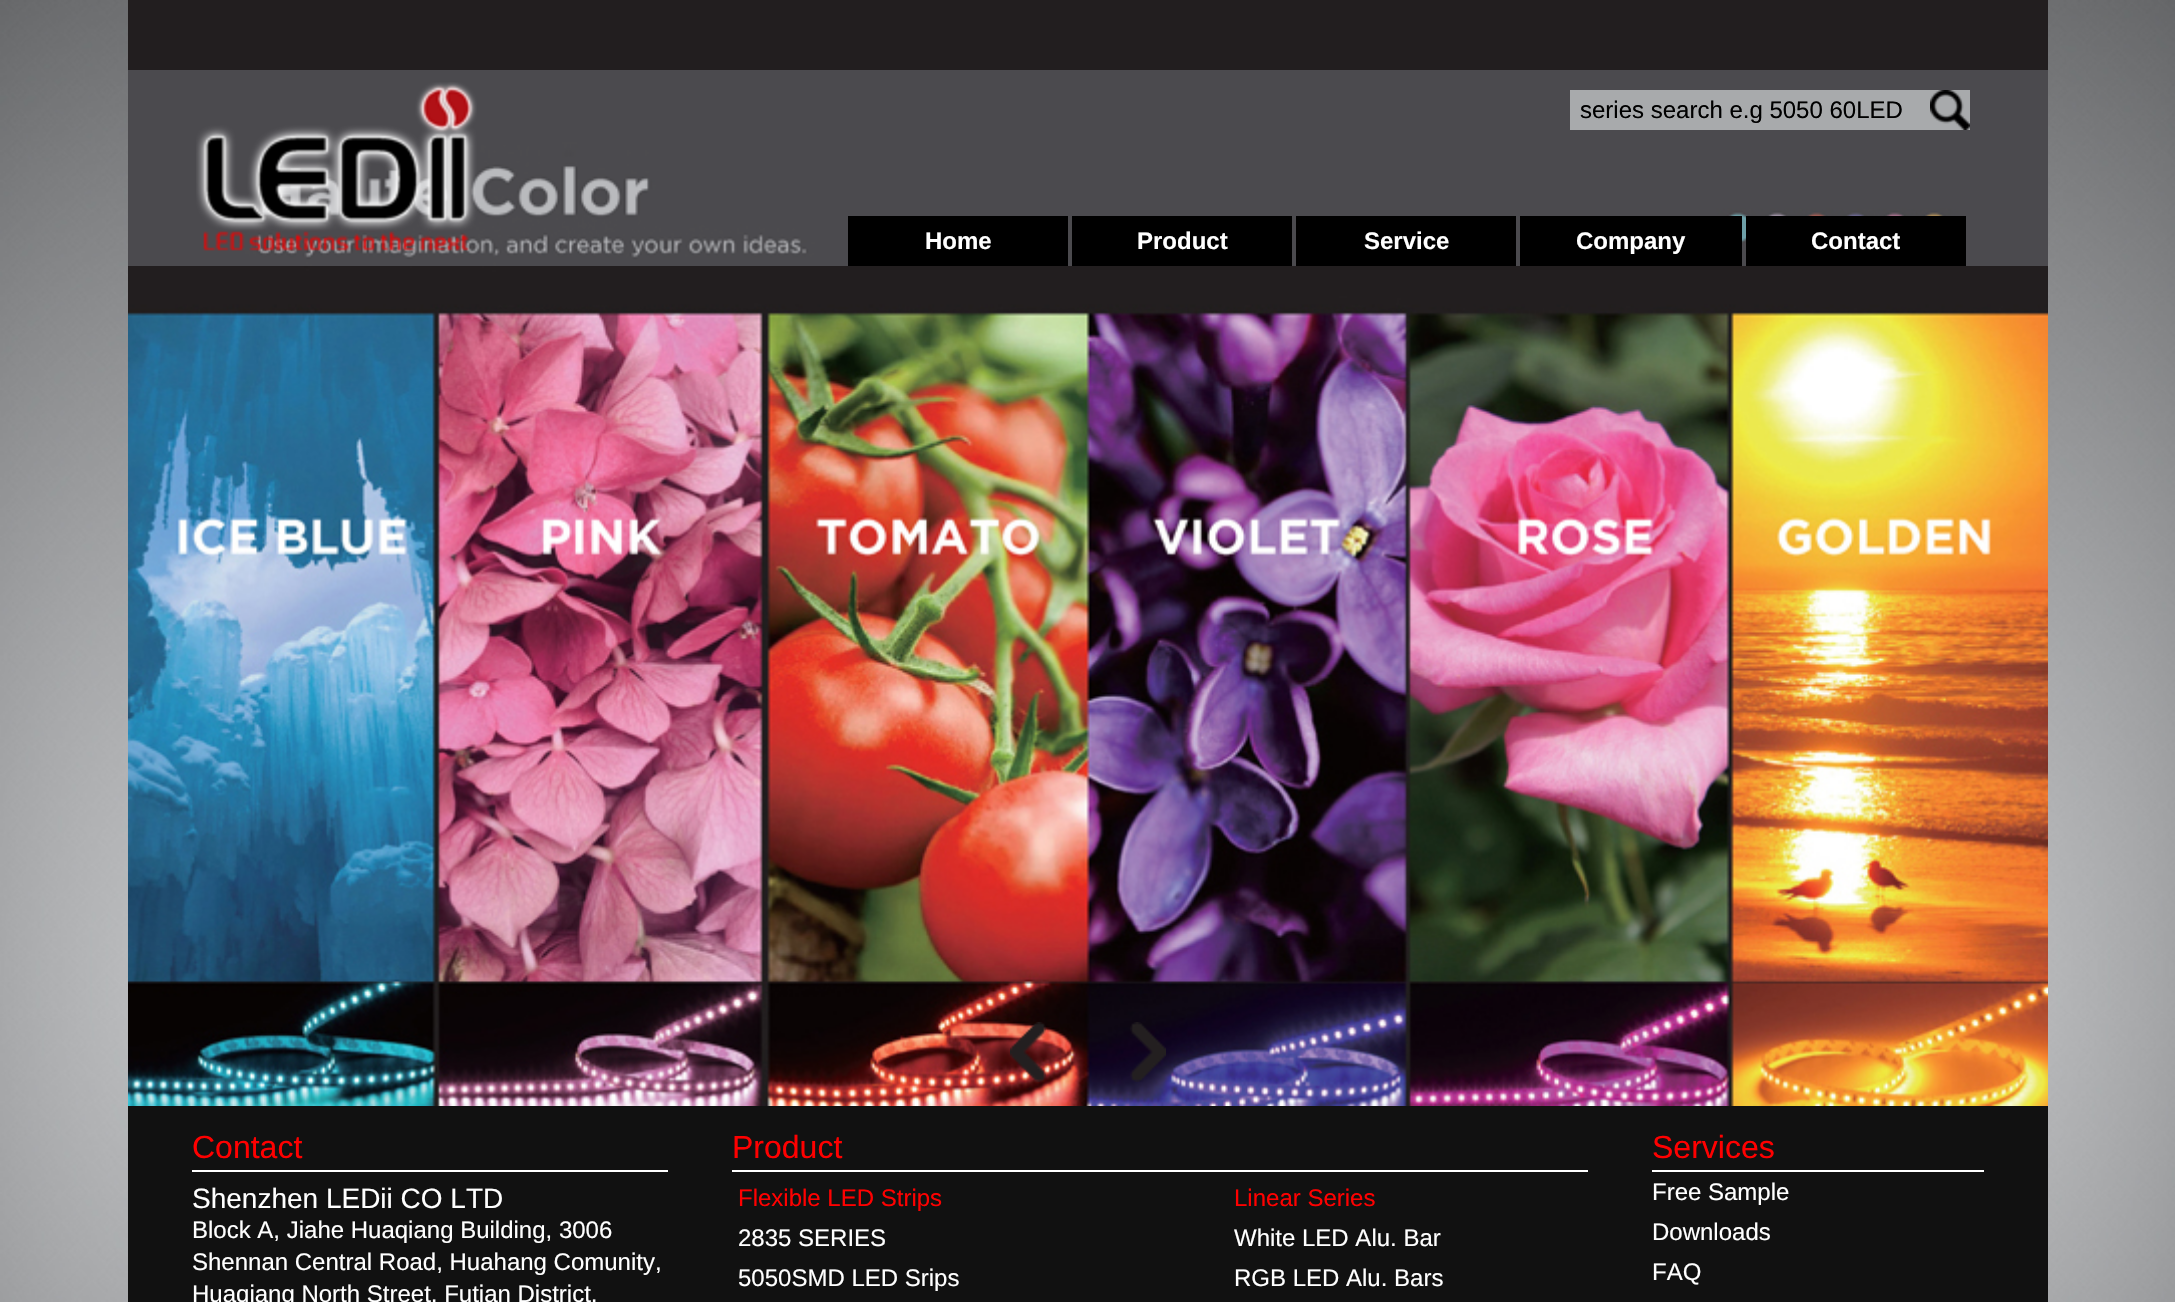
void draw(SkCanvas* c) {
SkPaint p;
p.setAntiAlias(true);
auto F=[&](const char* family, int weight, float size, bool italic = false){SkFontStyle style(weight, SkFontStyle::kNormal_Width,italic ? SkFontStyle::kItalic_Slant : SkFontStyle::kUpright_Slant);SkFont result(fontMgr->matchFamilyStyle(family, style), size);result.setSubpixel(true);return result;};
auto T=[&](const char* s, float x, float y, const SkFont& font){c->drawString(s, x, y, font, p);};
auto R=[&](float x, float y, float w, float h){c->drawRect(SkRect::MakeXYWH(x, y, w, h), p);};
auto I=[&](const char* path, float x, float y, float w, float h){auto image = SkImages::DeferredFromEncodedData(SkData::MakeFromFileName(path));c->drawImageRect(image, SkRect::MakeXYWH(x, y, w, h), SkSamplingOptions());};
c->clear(0xffffffff);
I("1.png",0,0,2175,1302);
I("2.png",128,0,1920,1106);
p.setColor(0x8073767b);
R(128,70,1920,196);
I("3.png",196,82,281,169);
p.setColor(0xffa8aaac);
R(1570,90,400,40);
I("4.png",1930,90,40,40);
auto f1 = F("Liberation Sans",400,24);
p.setColor(0xff000000);
T("series search e.g 5050 60LED",1580,118,f1);
R(848,216,220,50);
auto f2 = F("Liberation Sans",700,24);
p.setColor(0xffffffff);
T("Home",925,249,f2);
p.setColor(0xff000000);
R(1072,216,220,50);
p.setColor(0xffffffff);
T("Product",1137,249,f2);
p.setColor(0xff000000);
R(1296,216,220,50);
p.setColor(0xffffffff);
T("Service",1364,249,f2);
p.setColor(0xff000000);
R(1520,216,222,50);
p.setColor(0xffffffff);
T("Company",1576,249,f2);
p.setColor(0xff000000);
R(1746,216,220,50);
p.setColor(0xffffffff);
T("Contact",1811,249,f2);
I("5.png",1010,1022,36,60);
I("6.png",1130,1022,36,60);
p.setColor(0xff111111);
R(128,1106,1920,196);
p.setColor(0xffffffff);
R(192,1170,476,2);
auto f3 = F("Liberation Sans",400,32);
p.setColor(0xffff0000);
T("Contact",192,1158,f3);
auto f4 = F("Liberation Sans",400,28);
p.setColor(0xffffffff);
T("Shenzhen LEDii CO LTD",192,1208,f4);
T("Block A, Jiahe Huaqiang Building, 3006",192,1238,f1);
T("Shennan Central Road, Huahang Comunity,",192,1270,f1);
T("Huaqiang North Street, Futian District,",192,1302,f1);
R(732,1170,856,2);
p.setColor(0xffff0000);
T("Product",732,1158,f3);
T("Flexible LED Strips",738,1206,f1);
p.setColor(0xffffffff);
T("2835 SERIES",738,1246,f1);
T("5050SMD LED Srips",738,1286,f1);
p.setColor(0xffff0000);
T("Linear Series",1234,1206,f1);
p.setColor(0xffffffff);
T("White LED Alu. Bar",1234,1246,f1);
T("RGB LED Alu. Bars",1234,1286,f1);
R(1652,1170,332,2);
p.setColor(0xffff0000);
T("Services",1652,1158,f3);
p.setColor(0xffffffff);
T("Free Sample",1652,1200,f1);
T("Downloads",1652,1240,f1);
T("FAQ",1652,1280,f1);
}
